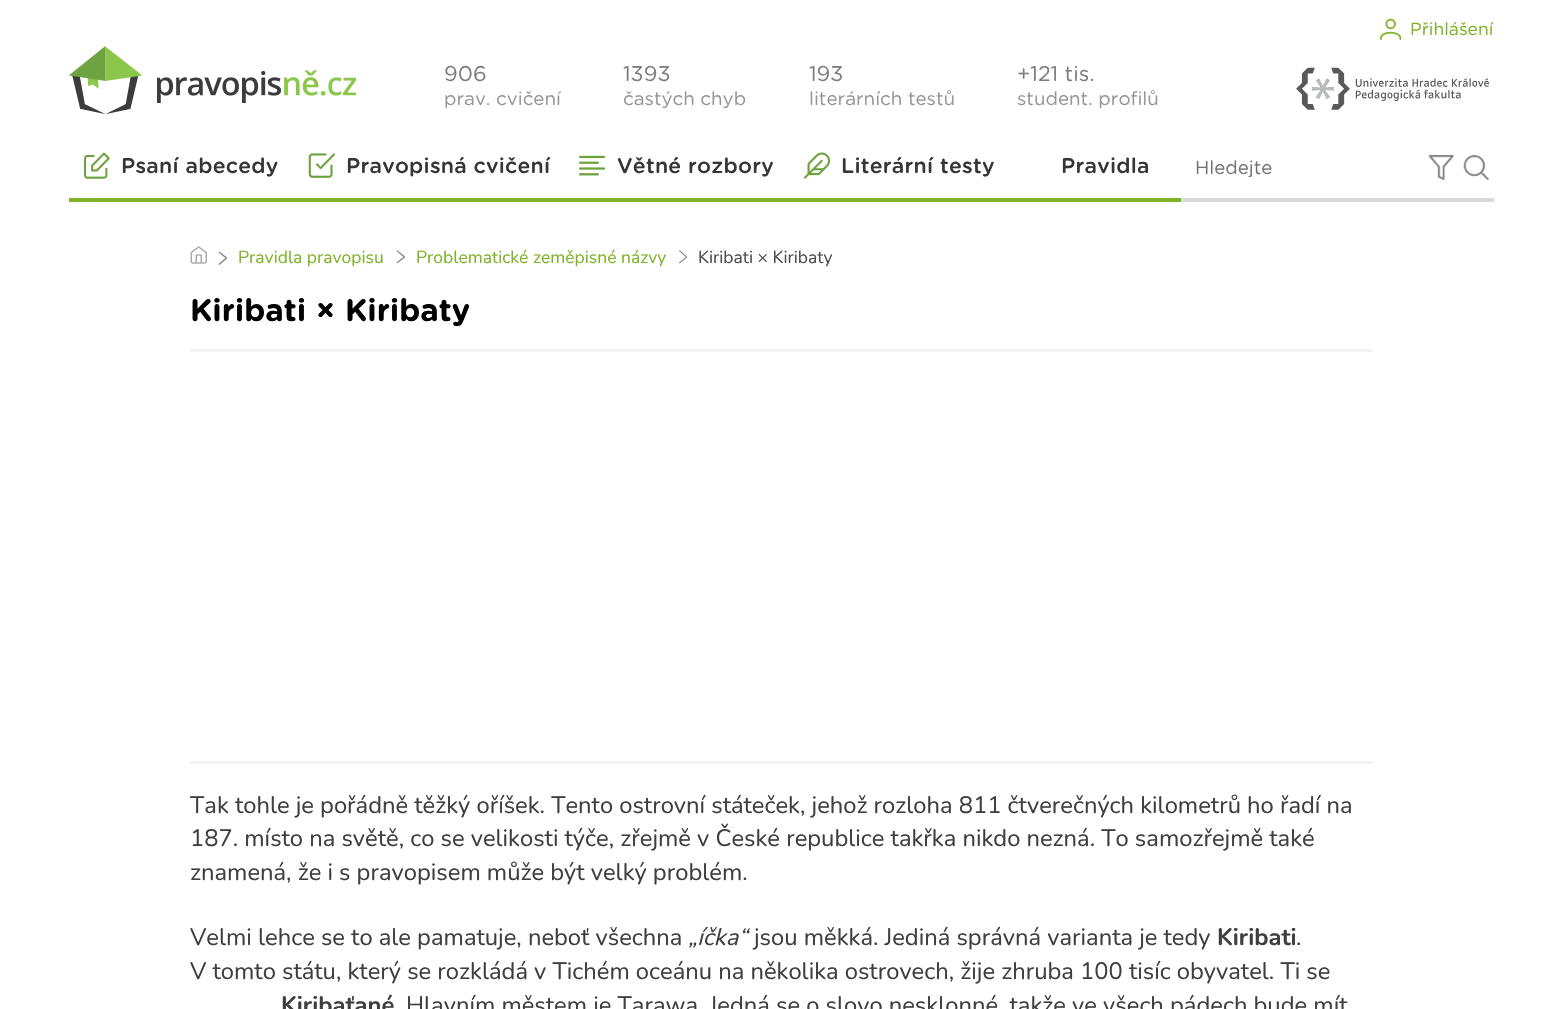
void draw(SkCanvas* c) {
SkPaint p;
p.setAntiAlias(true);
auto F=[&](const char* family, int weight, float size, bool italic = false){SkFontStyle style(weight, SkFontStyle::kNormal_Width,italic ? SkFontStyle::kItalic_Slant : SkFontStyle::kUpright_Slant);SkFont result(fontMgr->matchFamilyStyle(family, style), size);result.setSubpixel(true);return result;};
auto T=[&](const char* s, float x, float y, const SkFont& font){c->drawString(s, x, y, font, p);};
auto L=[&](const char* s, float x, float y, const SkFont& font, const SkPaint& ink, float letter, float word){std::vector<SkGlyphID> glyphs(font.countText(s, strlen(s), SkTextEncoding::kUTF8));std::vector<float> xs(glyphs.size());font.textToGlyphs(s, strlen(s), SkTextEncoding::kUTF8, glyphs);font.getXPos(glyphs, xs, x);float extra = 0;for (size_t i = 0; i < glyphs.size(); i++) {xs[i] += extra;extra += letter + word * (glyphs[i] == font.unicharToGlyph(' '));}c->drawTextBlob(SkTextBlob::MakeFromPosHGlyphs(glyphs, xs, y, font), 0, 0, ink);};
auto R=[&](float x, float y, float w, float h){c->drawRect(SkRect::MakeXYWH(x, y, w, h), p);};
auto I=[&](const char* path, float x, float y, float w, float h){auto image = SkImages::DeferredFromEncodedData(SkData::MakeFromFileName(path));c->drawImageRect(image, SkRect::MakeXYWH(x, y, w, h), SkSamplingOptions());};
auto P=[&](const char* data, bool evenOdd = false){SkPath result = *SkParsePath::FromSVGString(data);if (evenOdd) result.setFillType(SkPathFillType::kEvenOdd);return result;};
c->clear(0xffffffff);
I("1.png",1380,18,22,22);
auto f1 = F("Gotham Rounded",400,17.5);
p.setColor(0xff7eb227);
T("Přihlášení",1410,35,f1);
I("2.png",69,46,287,68);
auto f2 = F("Gotham Rounded",400,21.25);
p.setColor(0xff7d7d7d);
T("906",444,81,f2);
auto f3 = F("Gotham Rounded",400,18.75);
p.setColor(0xff959595);
T("prav. cvičení",444,105,f3);
p.setColor(0xff7d7d7d);
T("1393",623,81,f2);
p.setColor(0xff959595);
T("častých chyb",623,105,f3);
p.setColor(0xff7d7d7d);
T("193",809,81,f2);
p.setColor(0xff959595);
T("literárních testů",809,105,f3);
p.setColor(0xff7d7d7d);
T("+121 tis.",1017,81,f2);
p.setColor(0xff959595);
T("student. profilů",1017,105,f3);
I("3.png",1296,67,193,43);
p.setColor(0xff7eb227);
R(69,198,1112,4);
I("4.png",84,152,26,27);
auto f4 = F("Gotham Rounded",500,21.25);
p.setColor(0xff363636);
L("Psaní abecedy",121,173,f4,p,.25,0);
I("5.png",308,153,27,25);
L("Pravopisná cvičení",346,173,f4,p,.25,0);
I("6.png",578,155,28,21);
L("Větné rozbory",617,173,f4,p,.25,0);
I("7.png",803,152,28,27);
L("Literární testy",841,173,f4,p,.25,0);
L("Pravidla",1061,173,f4,p,.25,0);
p.setColor(0xff737373);
T("Hledejte",1195,174,f3);
I("8.png",1428,155,26,25);
I("9.png",1463,155,26,25);
p.setColor(0xffdadada);
R(1181,198,313,4);
I("10.png",190,246,17,18);
p.setColor(0xff858585);
c->drawPath(P("M226 257.5l1 1l-7.5 6.5l-1-1z"),p);
c->drawPath(P("M218.5 252.5l1-1l7.5 6l-1 1z"),p);
auto f5 = F("Nunito",400,17.5);
p.setColor(0xff7eb227);
T("Pravidla pravopisu",238,263,f5);
p.setColor(0xff858585);
c->drawPath(P("M404 256.5l1 1l-8 6l-.5-1z"),p);
c->drawPath(P("M396.5 251l.5-1l8 6.5l-1 1z"),p);
p.setColor(0xff7eb227);
T("Problematické zeměpisné názvy",416,263,f5);
p.setColor(0xff858585);
c->drawPath(P("M686.5 256.5l.5 1l-7.5 6l-.5-1z"),p);
c->drawPath(P("M679 251l.5-1l7.5 6.5l-.5 1z"),p);
p.setColor(0xff4a4a4a);
T("Kiribati × Kiribaty",698,263,f5);
auto f6 = F("Gotham Rounded",700,31.25);
p.setColor(0xff000000);
T("Kiribati × Kiribaty",190,321,f6);
p.setColor(0xfff2f2f2);
R(190,349,1183,3);
R(190,761,1183,3);
auto f7 = F("Nunito",400,23.75);
p.setColor(0xff3f3f3f);
T("Tak tohle je pořádně těžký oříšek. Tento ostrovní státeček, jehož rozloha 811 čtverečných kilometrů ho řadí na",190,813,f7);
T("187. místo na světě, co se velikosti týče, zřejmě v České republice takřka nikdo nezná. To samozřejmě také",190,846,f7);
T("znamená, že i s pravopisem může být velký problém.",190,880,f7);
T("Velmi lehce se to ale pamatuje, neboť všechna",190,945,f7);
auto f8 = F("Nunito",400,23.75,true);
T("„íčka“",688,945,f8);
T("jsou měkká. Jediná správná varianta je tedy",754,945,f7);
auto f9 = F("Nunito",700,23.75);
T("Kiribati",1217,945,f9);
T(".",1296,945,f7);
T("V tomto státu, který se rozkládá v Tichém oceánu na několika ostrovech, žije zhruba 100 tisíc obyvatel. Ti se",190,979,f7);
T("Kiribaťané",281,1013,f9);
T("Hlavním městem je Tarawa. Jedná se o slovo nesklonné, takže ve všech pádech bude mít",406,1013,f7);
}
